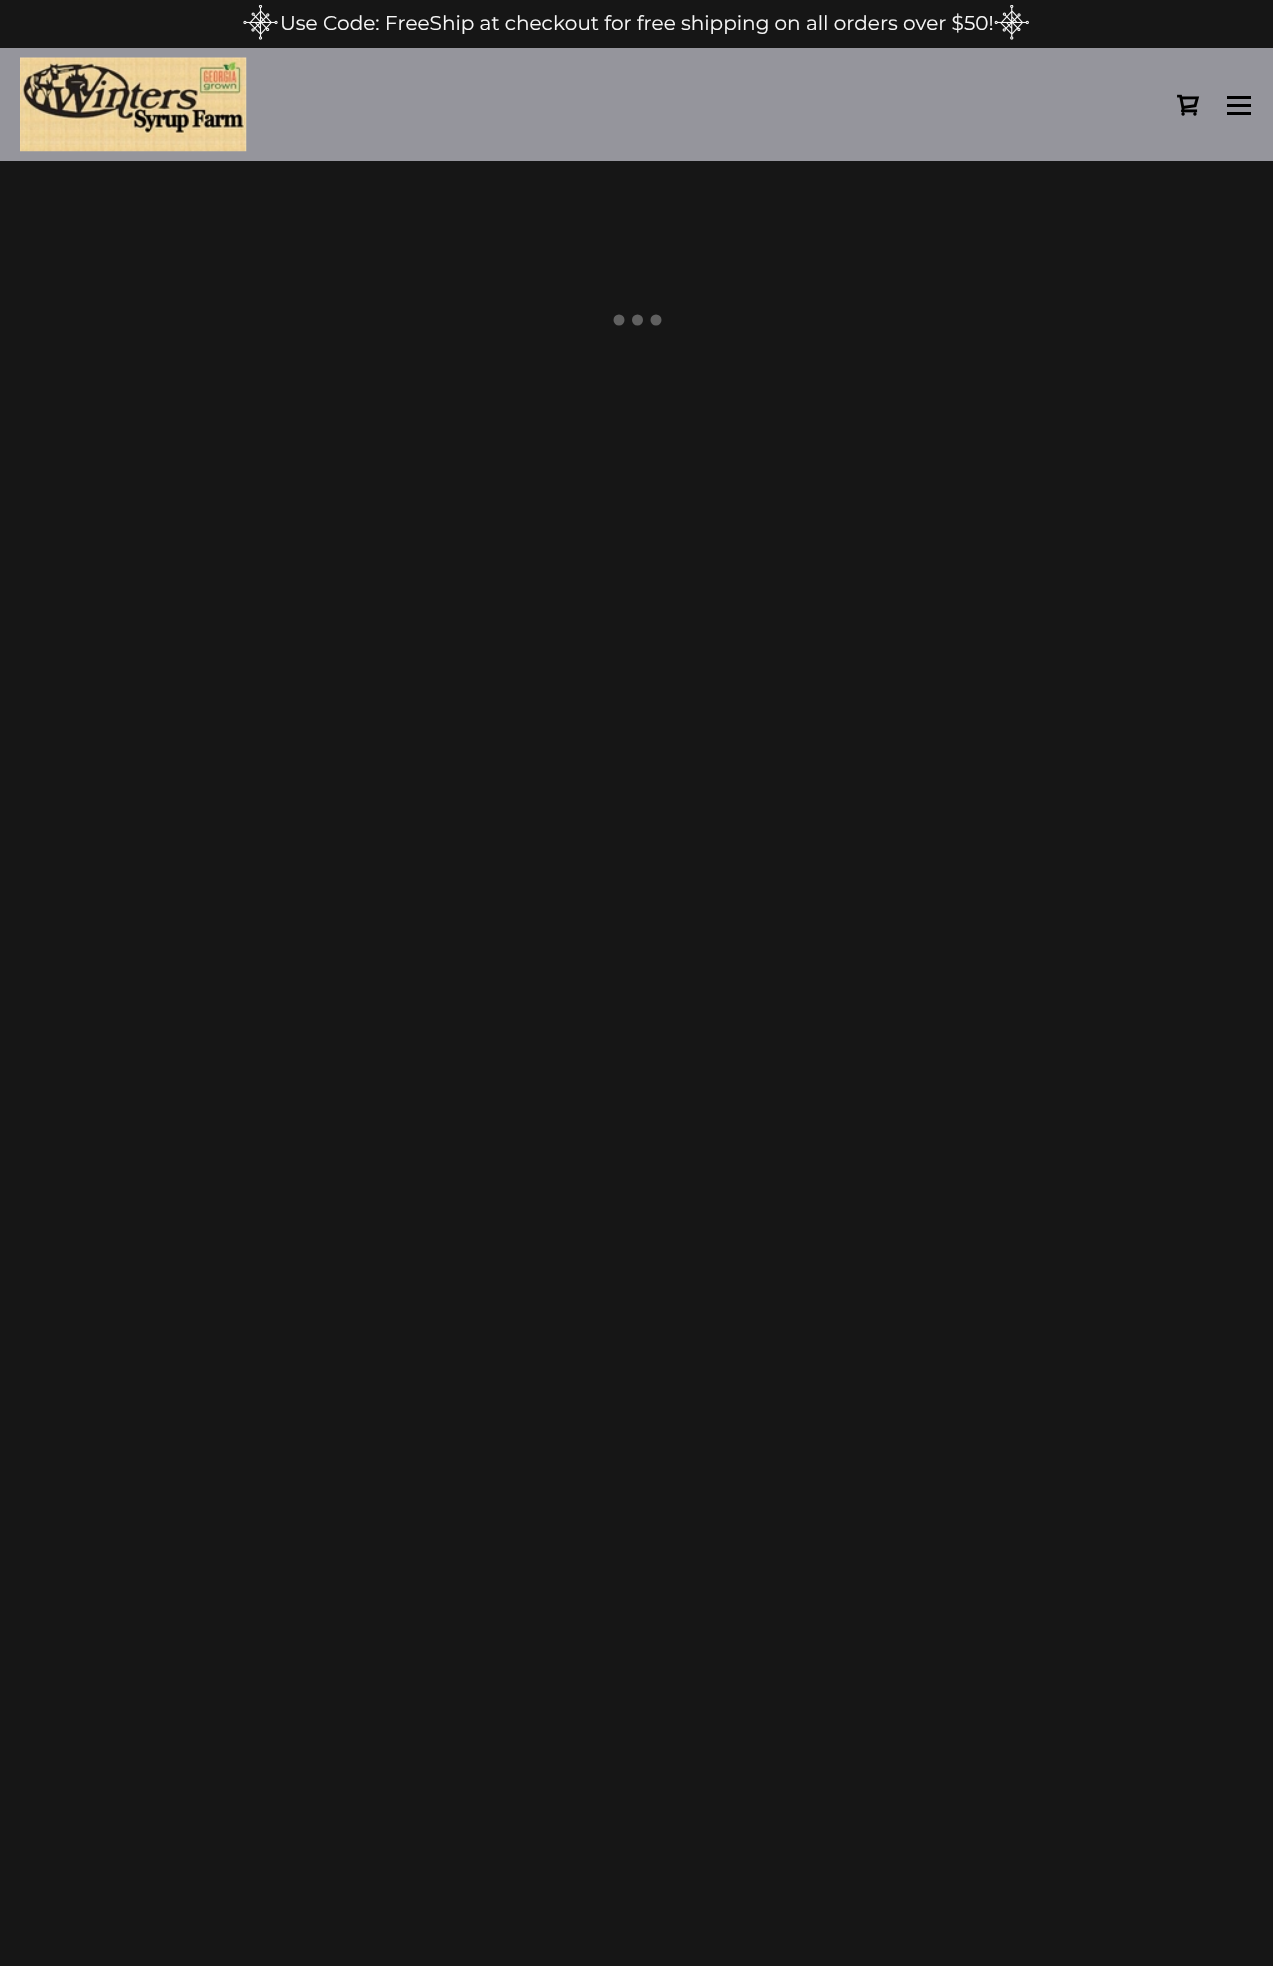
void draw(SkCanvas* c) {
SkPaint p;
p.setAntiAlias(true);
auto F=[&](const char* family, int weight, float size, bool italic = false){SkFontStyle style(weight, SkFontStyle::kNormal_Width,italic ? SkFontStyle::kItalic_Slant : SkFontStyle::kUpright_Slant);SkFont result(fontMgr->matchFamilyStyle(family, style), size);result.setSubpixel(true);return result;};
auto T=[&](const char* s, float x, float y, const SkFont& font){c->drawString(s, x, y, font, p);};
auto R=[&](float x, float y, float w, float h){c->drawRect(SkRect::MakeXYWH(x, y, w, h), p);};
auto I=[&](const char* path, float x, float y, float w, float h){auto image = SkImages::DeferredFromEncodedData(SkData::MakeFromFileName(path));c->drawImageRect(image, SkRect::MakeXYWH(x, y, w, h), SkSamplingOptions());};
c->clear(0xff161616);
p.setColor(0xff95959c);
R(0,48,1273,113);
I("1.png",243,5,35,35);
auto f1 = F("Montserrat",400,20);
p.setColor(0xfff7f7f7);
T("Use Code: FreeShip at checkout for free shipping on all orders over $50!",280,30,f1);
I("2.png",994,5,35,35);
I("3.png",20,57,227,95);
I("4.png",1177,94,23,22);
p.setColor(0xff000000);
R(1227,96,24,3);
R(1227,104,24,3);
R(1227,112,24,3);
p.setColor(0xff606060);
c->drawCircle(619,320,5.5,p);
c->drawCircle(637.5,320,5.5,p);
c->drawCircle(656,320,5.5,p);
}
